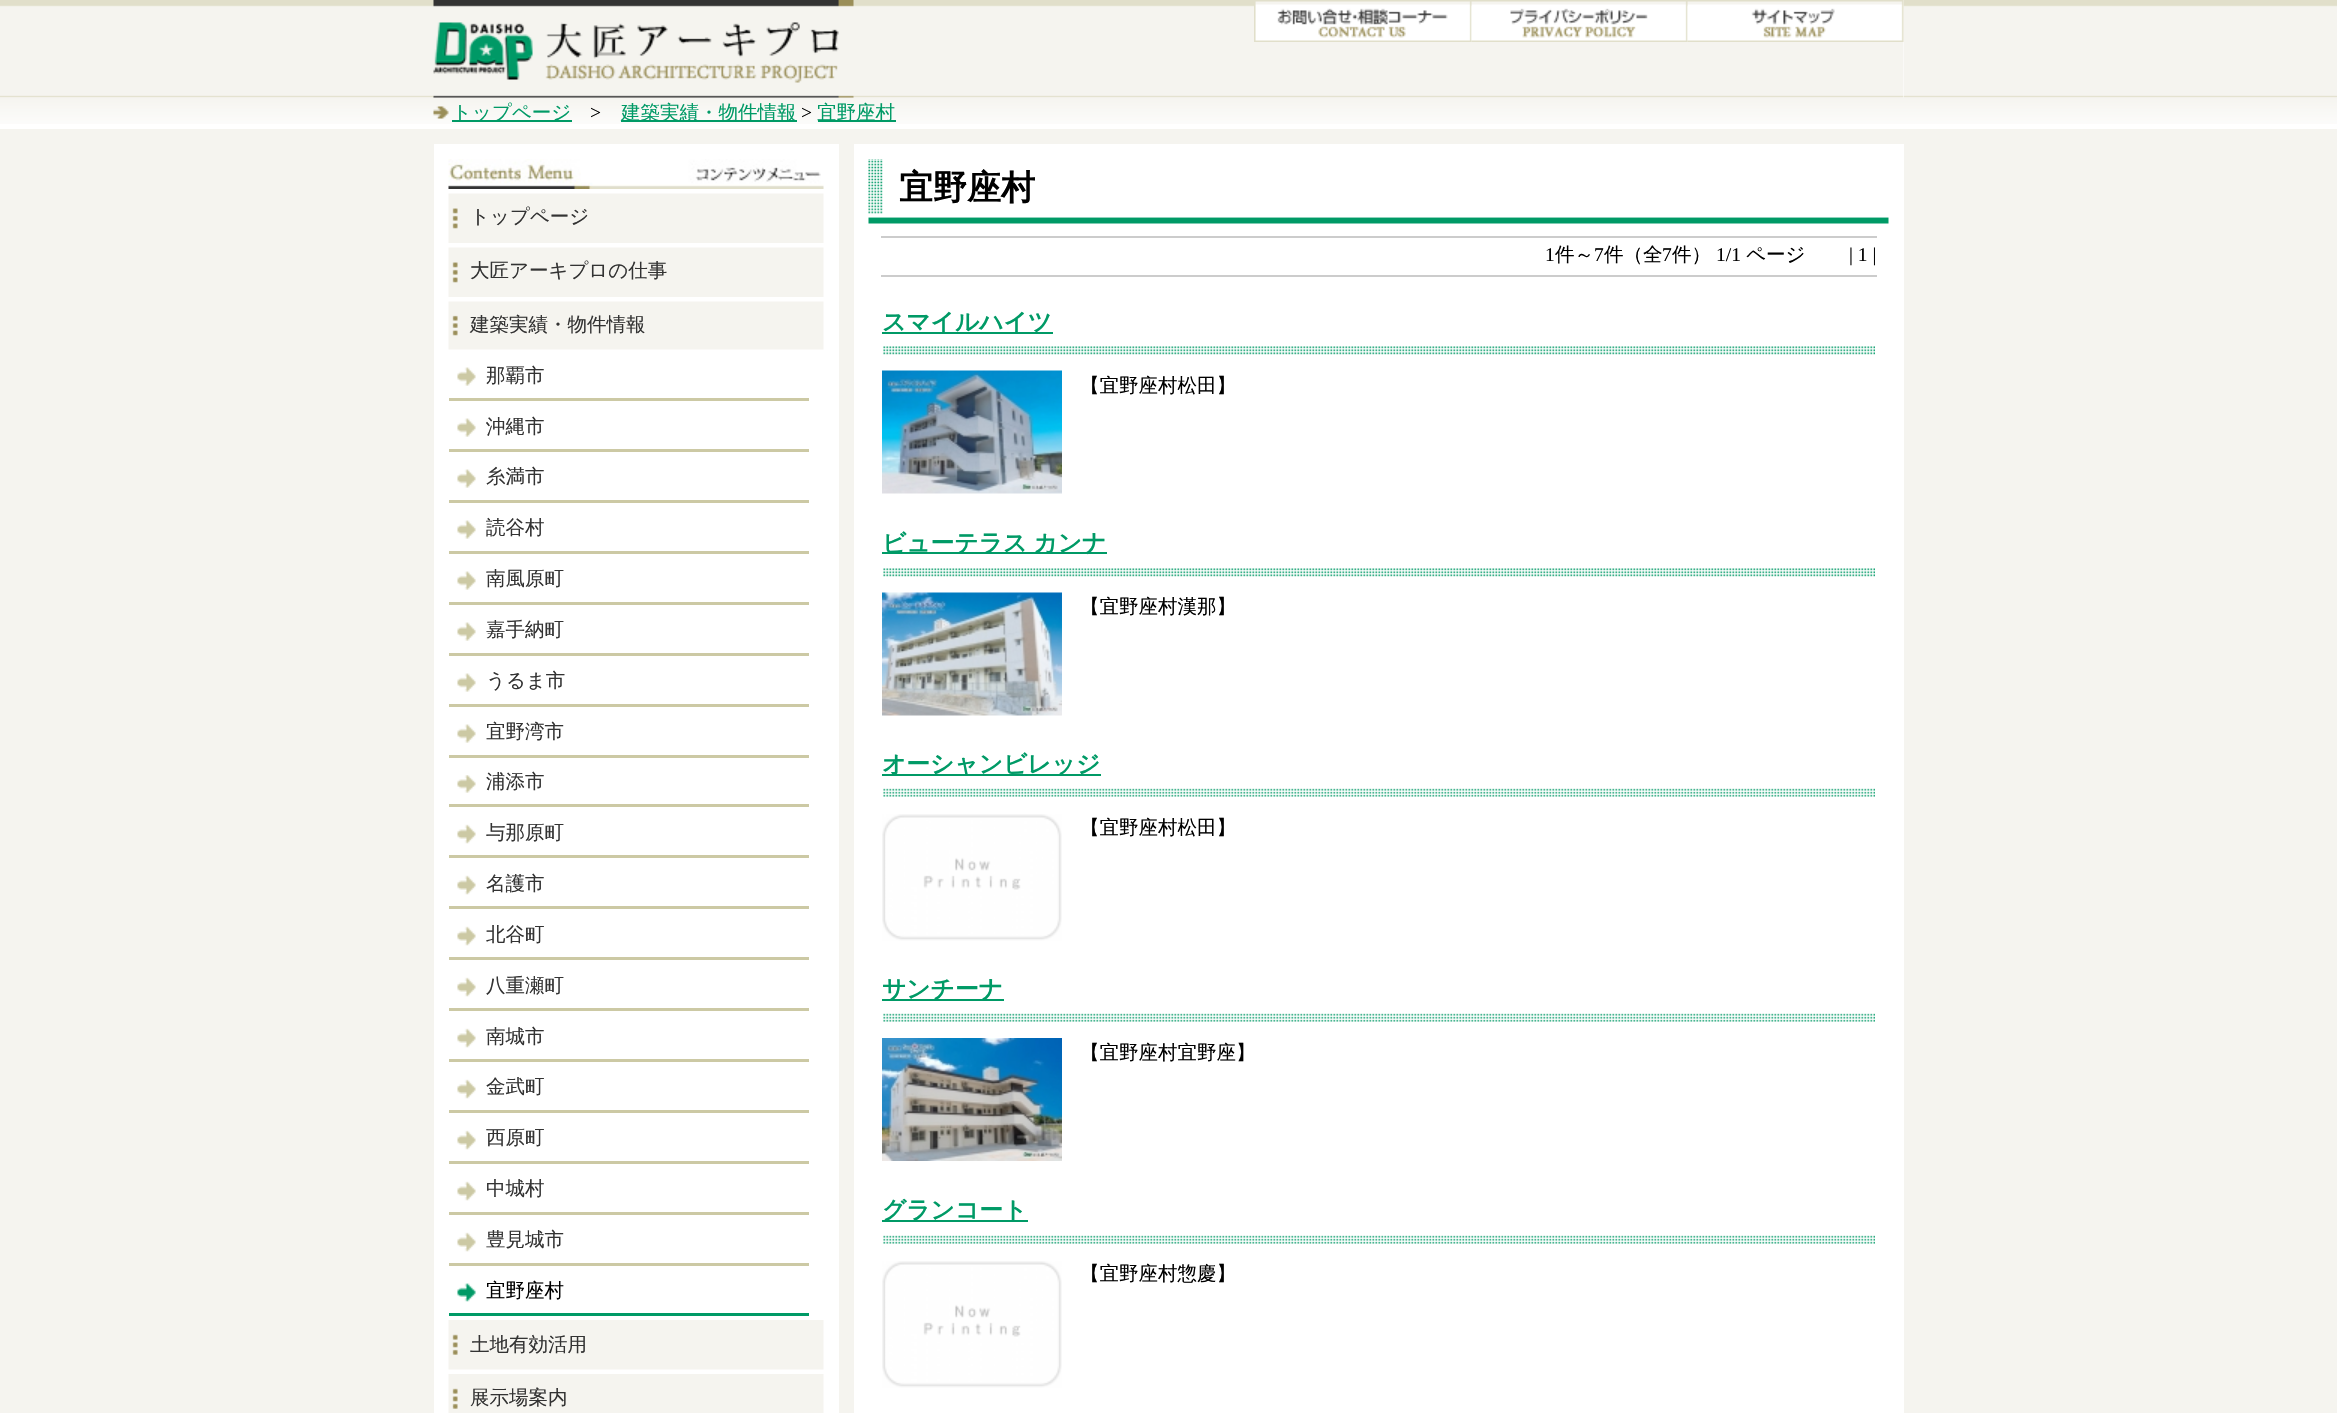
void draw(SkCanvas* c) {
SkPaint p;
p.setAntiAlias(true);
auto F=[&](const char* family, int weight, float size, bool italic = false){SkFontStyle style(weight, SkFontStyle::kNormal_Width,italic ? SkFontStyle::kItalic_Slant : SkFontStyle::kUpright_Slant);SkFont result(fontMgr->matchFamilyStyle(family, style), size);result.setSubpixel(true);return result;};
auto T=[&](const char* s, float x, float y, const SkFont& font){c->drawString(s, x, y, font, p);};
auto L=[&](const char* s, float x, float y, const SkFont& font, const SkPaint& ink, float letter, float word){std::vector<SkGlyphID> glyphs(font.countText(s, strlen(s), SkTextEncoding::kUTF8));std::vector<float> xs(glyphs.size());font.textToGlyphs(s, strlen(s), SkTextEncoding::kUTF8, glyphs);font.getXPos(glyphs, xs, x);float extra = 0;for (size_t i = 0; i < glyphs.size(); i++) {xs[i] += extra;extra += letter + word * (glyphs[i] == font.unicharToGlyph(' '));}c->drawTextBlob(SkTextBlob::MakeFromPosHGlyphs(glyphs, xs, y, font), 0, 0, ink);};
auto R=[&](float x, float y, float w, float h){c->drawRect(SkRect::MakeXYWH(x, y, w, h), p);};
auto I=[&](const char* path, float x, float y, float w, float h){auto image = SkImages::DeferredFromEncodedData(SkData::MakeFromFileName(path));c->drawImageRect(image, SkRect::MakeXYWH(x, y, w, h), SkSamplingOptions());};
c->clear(0xffffffff);
I("1.png",0,0,2337,98);
p.setColor(0xffffffff);
R(434,0,1470,98);
I("2.png",433,0,1471,98);
I("7.png",0,97,2337,27);
I("3.png",433,0,421,98);
I("4.png",1254,1,218,41);
I("5.png",1471,1,217,41);
I("6.png",1687,0,217,42);
I("8.png",433,106,16,13);
p.setColor(0xff009a66);
R(452,120,120,2);
auto f1 = F("WenQuanYi Zen Hei",500,19.5);
T("トップページ",452,119,f1);
auto f2 = F("Liberation Serif",400,19.5);
p.setColor(0xff000000);
T(">",590,119,f2);
p.setColor(0xff009a66);
R(621,120,176,2);
T("建築実績・物件情報",621,119,f1);
p.setColor(0xff000000);
T(">",801,119,f2);
p.setColor(0xff009a66);
R(818,120,78,2);
T("宜野座村",817,119,f1);
p.setColor(0xfff5f4ef);
R(0,129,2337,1284);
p.setColor(0xffffffff);
R(434,144,405,1269);
I("9.png",448,159,376,30);
I("10.png",448,193,376,50);
p.setColor(0xff333333);
T("トップページ",470,223,f1);
I("10.png",448,247,376,50);
T("大匠アーキプロの仕事",470,277,f1);
I("11.png",448,301,376,49);
T("建築実績・物件情報",470,331,f1);
I("12.png",457,367,19,19);
p.setColor(0xffccc9a4);
R(449,398,360,3);
p.setColor(0xff333333);
T("那覇市",486,382,f1);
I("12.png",457,418,19,19);
p.setColor(0xffccc9a4);
R(449,449,360,3);
p.setColor(0xff333333);
T("沖縄市",486,433,f1);
I("12.png",457,469,19,19);
p.setColor(0xffccc9a4);
R(449,500,360,3);
p.setColor(0xff333333);
T("糸満市",486,483,f1);
I("12.png",457,520,19,19);
p.setColor(0xffccc9a4);
R(449,551,360,3);
p.setColor(0xff333333);
T("読谷村",486,534,f1);
I("12.png",457,571,19,19);
p.setColor(0xffccc9a4);
R(449,602,360,3);
p.setColor(0xff333333);
T("南風原町",486,585,f1);
I("12.png",457,622,19,19);
p.setColor(0xffccc9a4);
R(449,653,360,3);
p.setColor(0xff333333);
T("嘉手納町",486,636,f1);
I("12.png",457,673,19,19);
p.setColor(0xffccc9a4);
R(449,704,360,3);
p.setColor(0xff333333);
T("うるま市",486,687,f1);
I("12.png",457,724,19,19);
p.setColor(0xffccc9a4);
R(449,755,360,3);
p.setColor(0xff333333);
T("宜野湾市",486,738,f1);
I("13.png",457,775,19,18);
p.setColor(0xffccc9a4);
R(449,804,360,3);
p.setColor(0xff333333);
T("浦添市",486,788,f1);
I("14.png",457,824,19,20);
p.setColor(0xffccc9a4);
R(449,855,360,3);
p.setColor(0xff333333);
T("与那原町",486,839,f1);
I("14.png",457,875,19,20);
p.setColor(0xffccc9a4);
R(449,906,360,3);
p.setColor(0xff333333);
T("名護市",486,890,f1);
I("14.png",457,926,19,20);
p.setColor(0xffccc9a4);
R(449,957,360,3);
p.setColor(0xff333333);
T("北谷町",486,941,f1);
I("14.png",457,977,19,20);
p.setColor(0xffccc9a4);
R(449,1008,360,3);
p.setColor(0xff333333);
T("八重瀬町",486,992,f1);
I("14.png",457,1028,19,20);
p.setColor(0xffccc9a4);
R(449,1059,360,3);
p.setColor(0xff333333);
T("南城市",486,1043,f1);
I("14.png",457,1079,19,20);
p.setColor(0xffccc9a4);
R(449,1110,360,3);
p.setColor(0xff333333);
T("金武町",486,1093,f1);
I("14.png",457,1130,19,20);
p.setColor(0xffccc9a4);
R(449,1161,360,3);
p.setColor(0xff333333);
T("西原町",486,1144,f1);
I("14.png",457,1181,19,20);
p.setColor(0xffccc9a4);
R(449,1212,360,3);
p.setColor(0xff333333);
T("中城村",486,1195,f1);
I("14.png",457,1232,19,20);
p.setColor(0xffccc9a4);
R(449,1263,360,3);
p.setColor(0xff333333);
T("豊見城市",486,1246,f1);
I("15.png",457,1283,19,19);
p.setColor(0xff009a66);
R(449,1313,360,3);
p.setColor(0xff000000);
T("宜野座村",486,1297,f1);
I("16.png",448,1320,376,50);
p.setColor(0xff333333);
T("土地有効活用",470,1351,f1);
I("17.png",448,1374,376,39);
T("展示場案内",470,1404,f1);
p.setColor(0xffffffff);
R(854,144,1050,1269);
I("18.png",868,159,1021,65);
auto f3 = F("WenQuanYi Zen Hei",700,34);
p.setColor(0xff000000);
T("宜野座村",899,199,f3);
p.setColor(0xffcccccc);
R(881,236,996,2);
R(881,275,996,2);
p.setColor(0xff000000);
T("1",1545,261,f2);
T("件～",1555,261,f1);
T("7",1594,261,f2);
T("件（全",1604,261,f1);
T("7",1662,261,f2);
T("件）",1672,261,f1);
T("1/1",1716,261,f2);
T("ページ",1746,261,f1);
T("| 1 |",1849,261,f2);
I("19.png",883,346,992,9);
p.setColor(0xff009a66);
R(882,332,171,2);
auto f4 = F("WenQuanYi Zen Hei",700,23.75);
T("スマイルハイツ",882,330,f4);
I("20.png",882,370,180,124);
p.setColor(0xff000000);
T("【宜野座村松田】",1080,392,f1);
I("19.png",883,568,992,9);
p.setColor(0xff009a66);
R(882,552,225,2);
L("ビューテラス カンナ",882,551,f4,p,0,-1);
I("21.png",882,592,180,124);
p.setColor(0xff000000);
T("【宜野座村漢那】",1080,613,f1);
I("22.png",883,788,992,9);
p.setColor(0xff009a66);
R(882,774,219,2);
T("オーシャンビレッジ",882,772,f4);
I("23.png",882,814,180,127);
p.setColor(0xff000000);
T("【宜野座村松田】",1080,834,f1);
I("22.png",883,1013,992,9);
p.setColor(0xff009a66);
R(882,999,122,2);
T("サンチーナ",882,997,f4);
I("24.png",882,1038,180,123);
p.setColor(0xff000000);
T("【宜野座村宜野座】",1080,1059,f1);
I("22.png",883,1235,992,9);
p.setColor(0xff009a66);
R(882,1220,146,2);
T("グランコート",882,1218,f4);
I("23.png",882,1261,180,127);
p.setColor(0xff000000);
T("【宜野座村惣慶】",1080,1280,f1);
}
